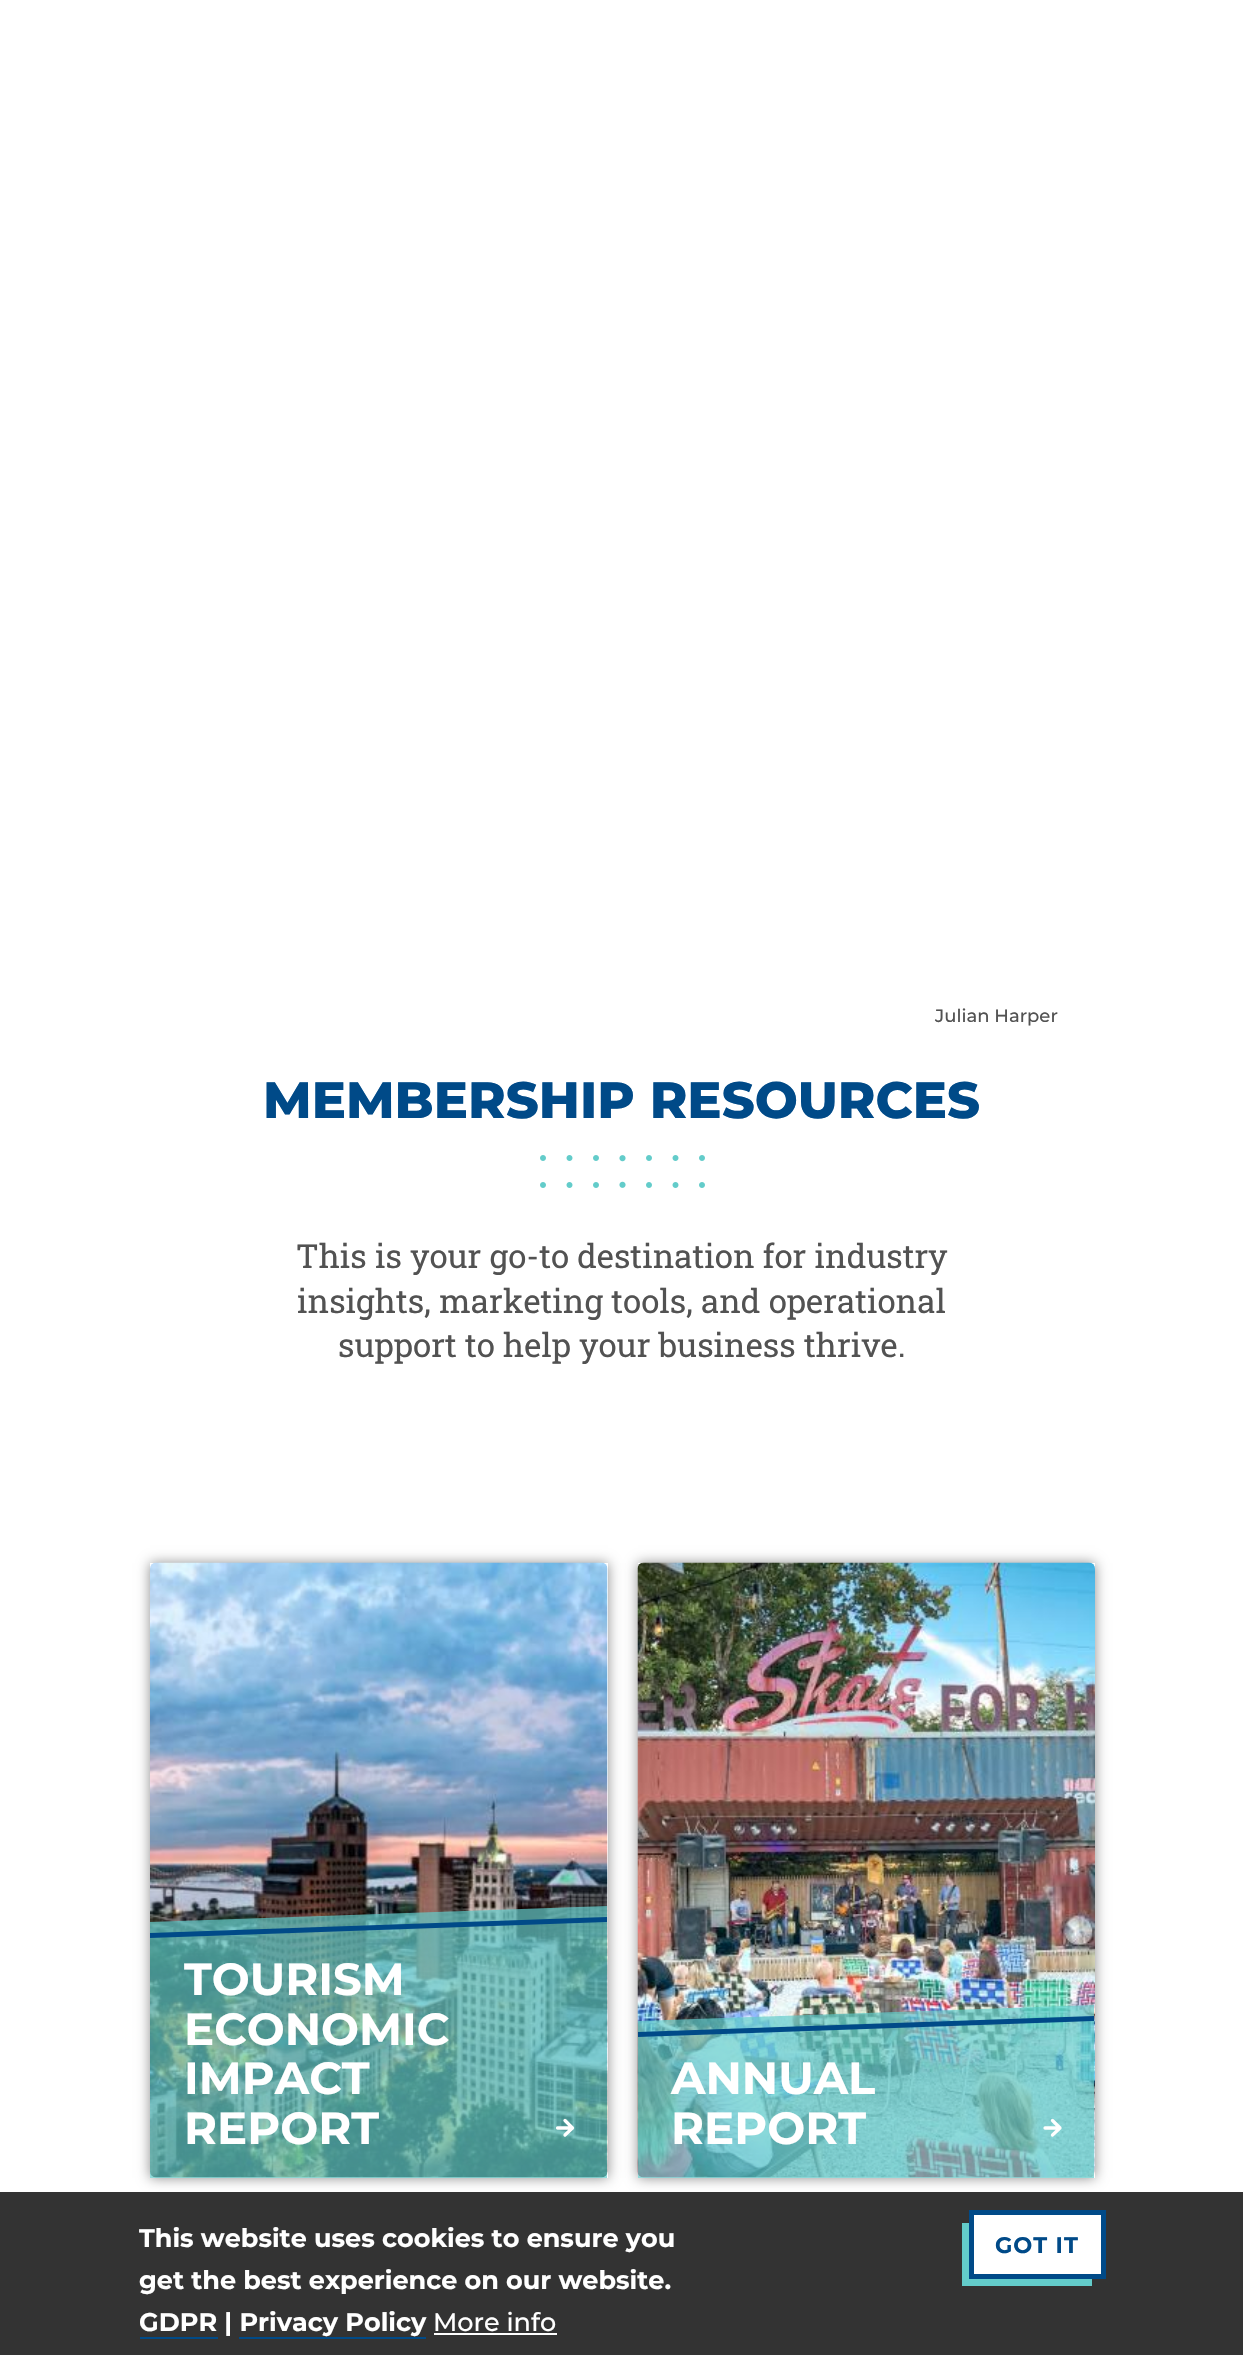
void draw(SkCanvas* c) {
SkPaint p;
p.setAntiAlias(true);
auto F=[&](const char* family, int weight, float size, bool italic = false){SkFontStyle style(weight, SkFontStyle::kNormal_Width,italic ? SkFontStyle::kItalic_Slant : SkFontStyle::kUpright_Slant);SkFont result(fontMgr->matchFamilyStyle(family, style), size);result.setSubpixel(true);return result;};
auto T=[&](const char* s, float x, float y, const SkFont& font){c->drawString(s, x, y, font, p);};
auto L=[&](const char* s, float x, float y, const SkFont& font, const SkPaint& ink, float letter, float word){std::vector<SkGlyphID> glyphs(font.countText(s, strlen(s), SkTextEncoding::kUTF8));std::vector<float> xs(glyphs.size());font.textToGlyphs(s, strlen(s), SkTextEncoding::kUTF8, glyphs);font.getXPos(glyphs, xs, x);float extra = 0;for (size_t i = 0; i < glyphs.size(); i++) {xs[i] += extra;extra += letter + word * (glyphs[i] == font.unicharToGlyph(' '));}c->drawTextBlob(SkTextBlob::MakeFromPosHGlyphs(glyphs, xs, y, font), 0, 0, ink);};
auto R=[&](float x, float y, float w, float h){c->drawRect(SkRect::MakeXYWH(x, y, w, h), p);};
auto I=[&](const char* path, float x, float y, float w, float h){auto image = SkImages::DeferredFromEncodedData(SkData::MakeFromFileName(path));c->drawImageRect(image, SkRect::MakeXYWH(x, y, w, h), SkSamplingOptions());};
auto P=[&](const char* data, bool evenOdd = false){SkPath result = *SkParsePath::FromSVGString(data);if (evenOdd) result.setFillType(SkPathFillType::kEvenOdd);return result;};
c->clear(0xffffffff);
auto f1 = F("Montserrat",500,18);
p.setColor(0xff525252);
T("Julian Harper",935,1022,f1);
auto f2 = F("Montserrat",800,51);
p.setColor(0xff004a88);
T("MEMBERSHIP RESOURCES",263,1118,f2);
I("1.png",540,1155,165,33);
auto f3 = F("Roboto Slab",400,33);
p.setColor(0xff525252);
T("This is your go-to destination for industry",296,1268,f3);
T("insights, marketing tools, and operational",297,1313,f3);
T("support to help your business thrive.",338,1357,f3);
c->save();
c->clipPath(P("M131 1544h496v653h-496zm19 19h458v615h-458z",true),true);
p.setColor(0x73000000);
p.setMaskFilter(SkMaskFilter::MakeBlur(kNormal_SkBlurStyle, 6));
c->drawRect(SkRect::MakeXYWH(150,1563,458,615),p);
p.setMaskFilter(nullptr);
c->restore();
I("2.png",150,1562,458,616);
c->save();
c->clipRect(SkRect::MakeXYWH(150,1563,458,615));
p.setColor(0xb363ccca);
c->drawPath(P("M149 1922l458-16v330l-458 16z"),p);
p.setColor(0xff004a88);
c->drawPath(P("M-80 1941l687-24v5l-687 24z"),p);
c->restore();
auto f4 = F("Montserrat",700,45);
p.setColor(0xffffffff);
T("TOURISM",184,1995,f4);
T("ECONOMIC",184,2045,f4);
T("IMPACT",184,2094,f4);
T("REPORT",184,2144,f4);
p.setStroke(true);
p.setStrokeWidth(3.3);
p.setStrokeCap(SkPaint::kRound_Cap);
p.setStrokeJoin(SkPaint::kRound_Join);
c->drawPath(P("M565 2135l7.5-7l-7.5-7.5m-7.5 7.5h15"),p);
c->save();
c->clipPath(P("M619 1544h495v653h-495zm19 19h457v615h-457z",true),true);
p.setStroke(false);
p.setColor(0x73000000);
p.setMaskFilter(SkMaskFilter::MakeBlur(kNormal_SkBlurStyle, 6));
c->drawRect(SkRect::MakeXYWH(638,1563,457,615),p);
p.setMaskFilter(nullptr);
c->restore();
I("3.png",637,1562,458,616);
c->save();
c->clipRect(SkRect::MakeXYWH(638,1563,457,615));
p.setColor(0xb363ccca);
c->drawPath(P("M637 2021l457-16v206l-457 16z"),p);
p.setColor(0xff004a88);
c->drawPath(P("M408 2040l686-24v5l-686 24z"),p);
c->restore();
p.setColor(0xffffffff);
T("ANNUAL",671,2094,f4);
T("REPORT",671,2144,f4);
p.setStroke(true);
c->drawPath(P("M1052.5 2135l7.5-7l-7.5-7.5m-7.5 7.5h15"),p);
p.setStroke(false);
p.setColor(0xff333333);
R(0,2192,1243,163);
auto f5 = F("Montserrat",700,25.5);
p.setColor(0xffffffff);
T("This website uses cookies to ensure you",139,2247,f5);
T("get the best experience on our website.",139,2289,f5);
T("GDPR | Privacy Policy",139,2331,f5);
p.setColor(0xff004a88);
R(140,2337,78,2);
R(239,2337,187,2);
auto f6 = F("Montserrat",500,25.5);
p.setColor(0xffffffff);
T("More info",433,2331,f6);
R(434,2333,123,2);
p.setColor(0xff63ccca);
c->drawPath(P("M962 2223v63h130v-8h-123v-55z"),p);
p.setColor(0xffffffff);
c->drawRect(SkRect::MakeXYWH(971.5,2212.5,132,64),p);
p.setStroke(true);
p.setStrokeWidth(5);
p.setStrokeCap(SkPaint::kButt_Cap);
p.setStrokeJoin(SkPaint::kMiter_Join);
p.setColor(0xff004a88);
c->drawRect(SkRect::MakeXYWH(971.5,2212.5,132,64),p);
auto f7 = F("Montserrat",700,22.5);
p.setStroke(false);
L("GOT IT",995,2253,f7,p,1,0);
}
